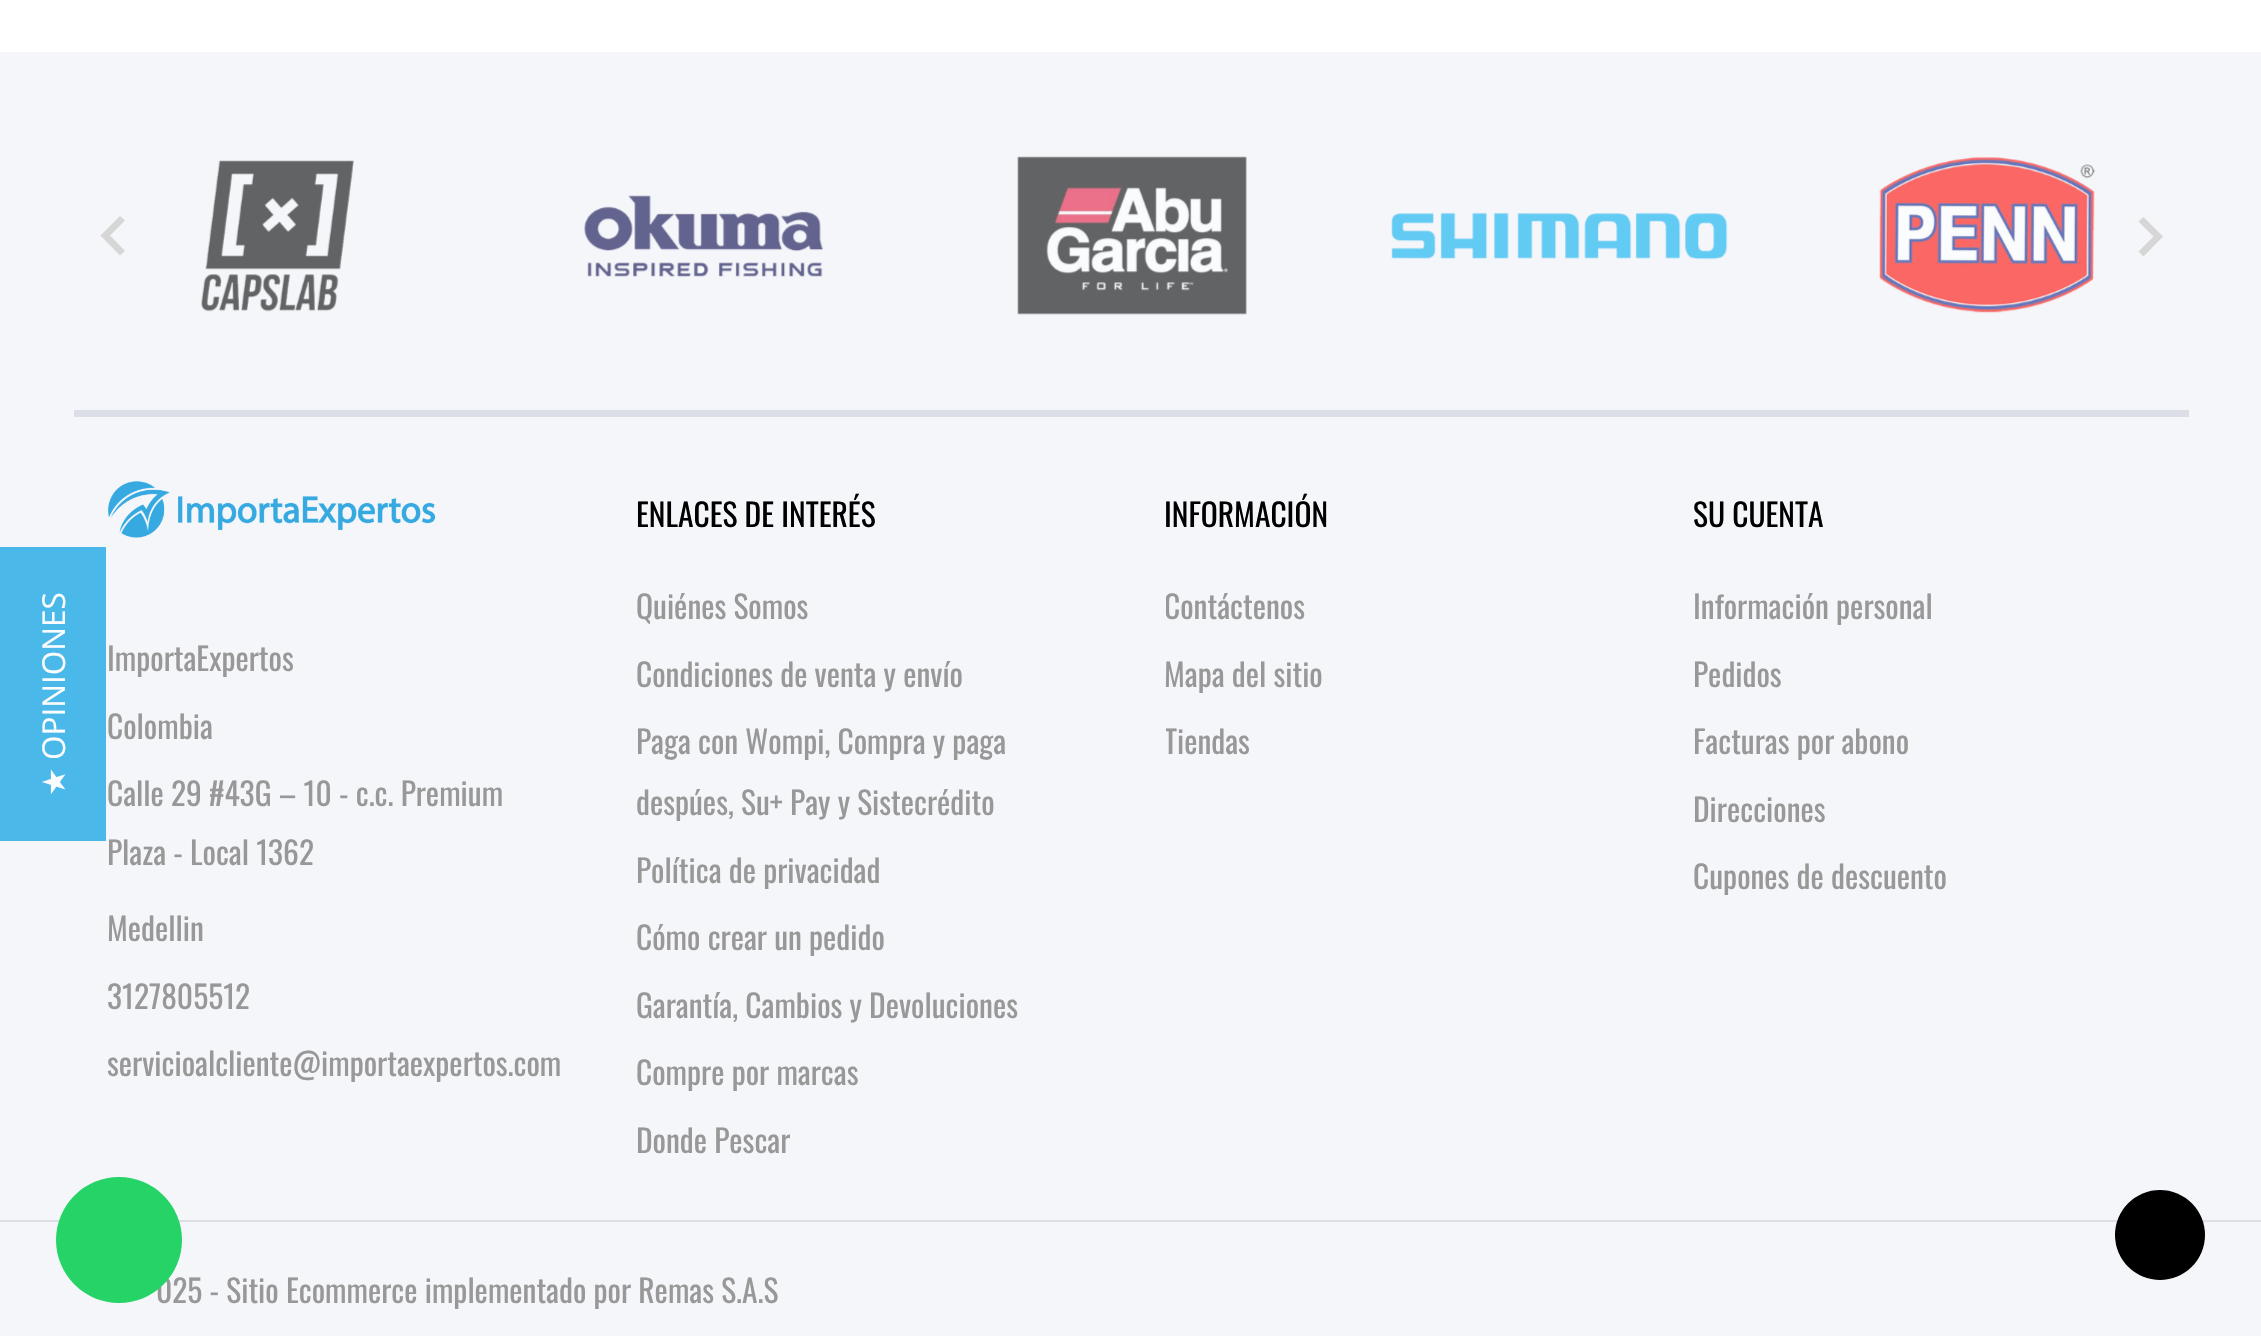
void draw(SkCanvas* c) {
SkPaint p;
p.setAntiAlias(true);
auto F=[&](const char* family, int weight, float size, bool italic = false){SkFontStyle style(weight, SkFontStyle::kNormal_Width,italic ? SkFontStyle::kItalic_Slant : SkFontStyle::kUpright_Slant);SkFont result(fontMgr->matchFamilyStyle(family, style), size);result.setSubpixel(true);return result;};
auto T=[&](const char* s, float x, float y, const SkFont& font){c->drawString(s, x, y, font, p);};
auto R=[&](float x, float y, float w, float h){c->drawRect(SkRect::MakeXYWH(x, y, w, h), p);};
auto I=[&](const char* path, float x, float y, float w, float h){auto image = SkImages::DeferredFromEncodedData(SkData::MakeFromFileName(path));c->drawImageRect(image, SkRect::MakeXYWH(x, y, w, h), SkSamplingOptions());};
auto P=[&](const char* data, bool evenOdd = false){SkPath result = *SkParsePath::FromSVGString(data);if (evenOdd) result.setFillType(SkPathFillType::kEvenOdd);return result;};
c->clear(0xffffffff);
p.setColor(0xfff5f6fa);
R(0,52,2261,1168);
p.setColor(0xff4ab9ea);
R(0,547,106,294);
auto f1 = F("Open Sans",400,31.5);
p.setColor(0xfffbfcfd);
c->save();
c->rotate(-90,65,760);
T("OPINIONES",65,760,f1);
c->restore();
auto f2 = F("DejaVu Sans",400,31.5);
c->save();
c->rotate(-90,65,796);
T("★",65,796,f2);
c->restore();
p.setColor(0xffdbdee7);
R(74,410,2115,7);
p.setColor(0xffd6d6d6);
c->drawPath(P("M125 251l-5 4.5l-19.5-20l19.5-19.5l5 4.5l-15 15z"),p);
I("1.png",201,160,153,152);
I("2.png",584,195,240,82);
I("3.png",1017,156,230,159);
I("4.png",1391,212,337,48);
I("5.png",1879,157,216,156);
c->drawPath(P("M2138.5 251.5l15-15l-15-15l5-4.5l19.5 19.5l-19.5 20z"),p);
I("6.png",108,481,328,57);
auto f3 = F("Oswald",400,31.5);
p.setColor(0xff989898);
T("ImportaExpertos",107,671,f3);
T("Colombia",107,739,f3);
T("Calle 29 #43G – 10 - c.c. Premium",107,806,f3);
T("Plaza - Local 1362",107,865,f3);
T("Medellin",107,941,f3);
T("3127805512",107,1009,f3);
T("servicioalcliente@importaexpertos.com",107,1076,f3);
p.setColor(0xff000000);
T("ENLACES DE INTERÉS",636,527,f3);
p.setColor(0xff989898);
T("Quiénes Somos",636,619,f3);
T("Condiciones de venta y envío",636,687,f3);
T("Paga con Wompi, Compra y paga",636,754,f3);
T("despúes, Su+ Pay y Sistecrédito",636,815,f3);
T("Política de privacidad",636,883,f3);
T("Cómo crear un pedido",636,950,f3);
T("Garantía, Cambios y Devoluciones",636,1018,f3);
T("Compre por marcas",636,1085,f3);
T("Donde Pescar",636,1153,f3);
p.setColor(0xff000000);
T("INFORMACIÓN",1164,527,f3);
c->save();
c->clipRect(SkRect::MakeXYWH(1166,574,461,61));
p.setColor(0xff989898);
T("Contáctenos",1164,619,f3);
c->restore();
T("Mapa del sitio",1164,687,f3);
c->save();
c->clipRect(SkRect::MakeXYWH(1166,709,461,61));
T("Tiendas",1164,754,f3);
c->restore();
p.setColor(0xff000000);
T("SU CUENTA",1693,527,f3);
p.setColor(0xff989898);
T("Información personal",1693,619,f3);
T("Pedidos",1693,687,f3);
T("Facturas por abono",1693,754,f3);
T("Direcciones",1693,822,f3);
T("Cupones de descuento",1693,889,f3);
p.setColor(0xfff5f6fa);
R(0,1222,2261,114);
p.setColor(0xffdbdee7);
R(0,1220,2261,2);
p.setColor(0xff000000);
c->drawCircle(2160,1235,45,p);
p.setColor(0xff989898);
T("025 - Sitio Ecommerce implementado por Remas S.A.S",156,1303,f3);
p.setColor(0xff25d366);
c->drawCircle(119,1240,63,p);
}
